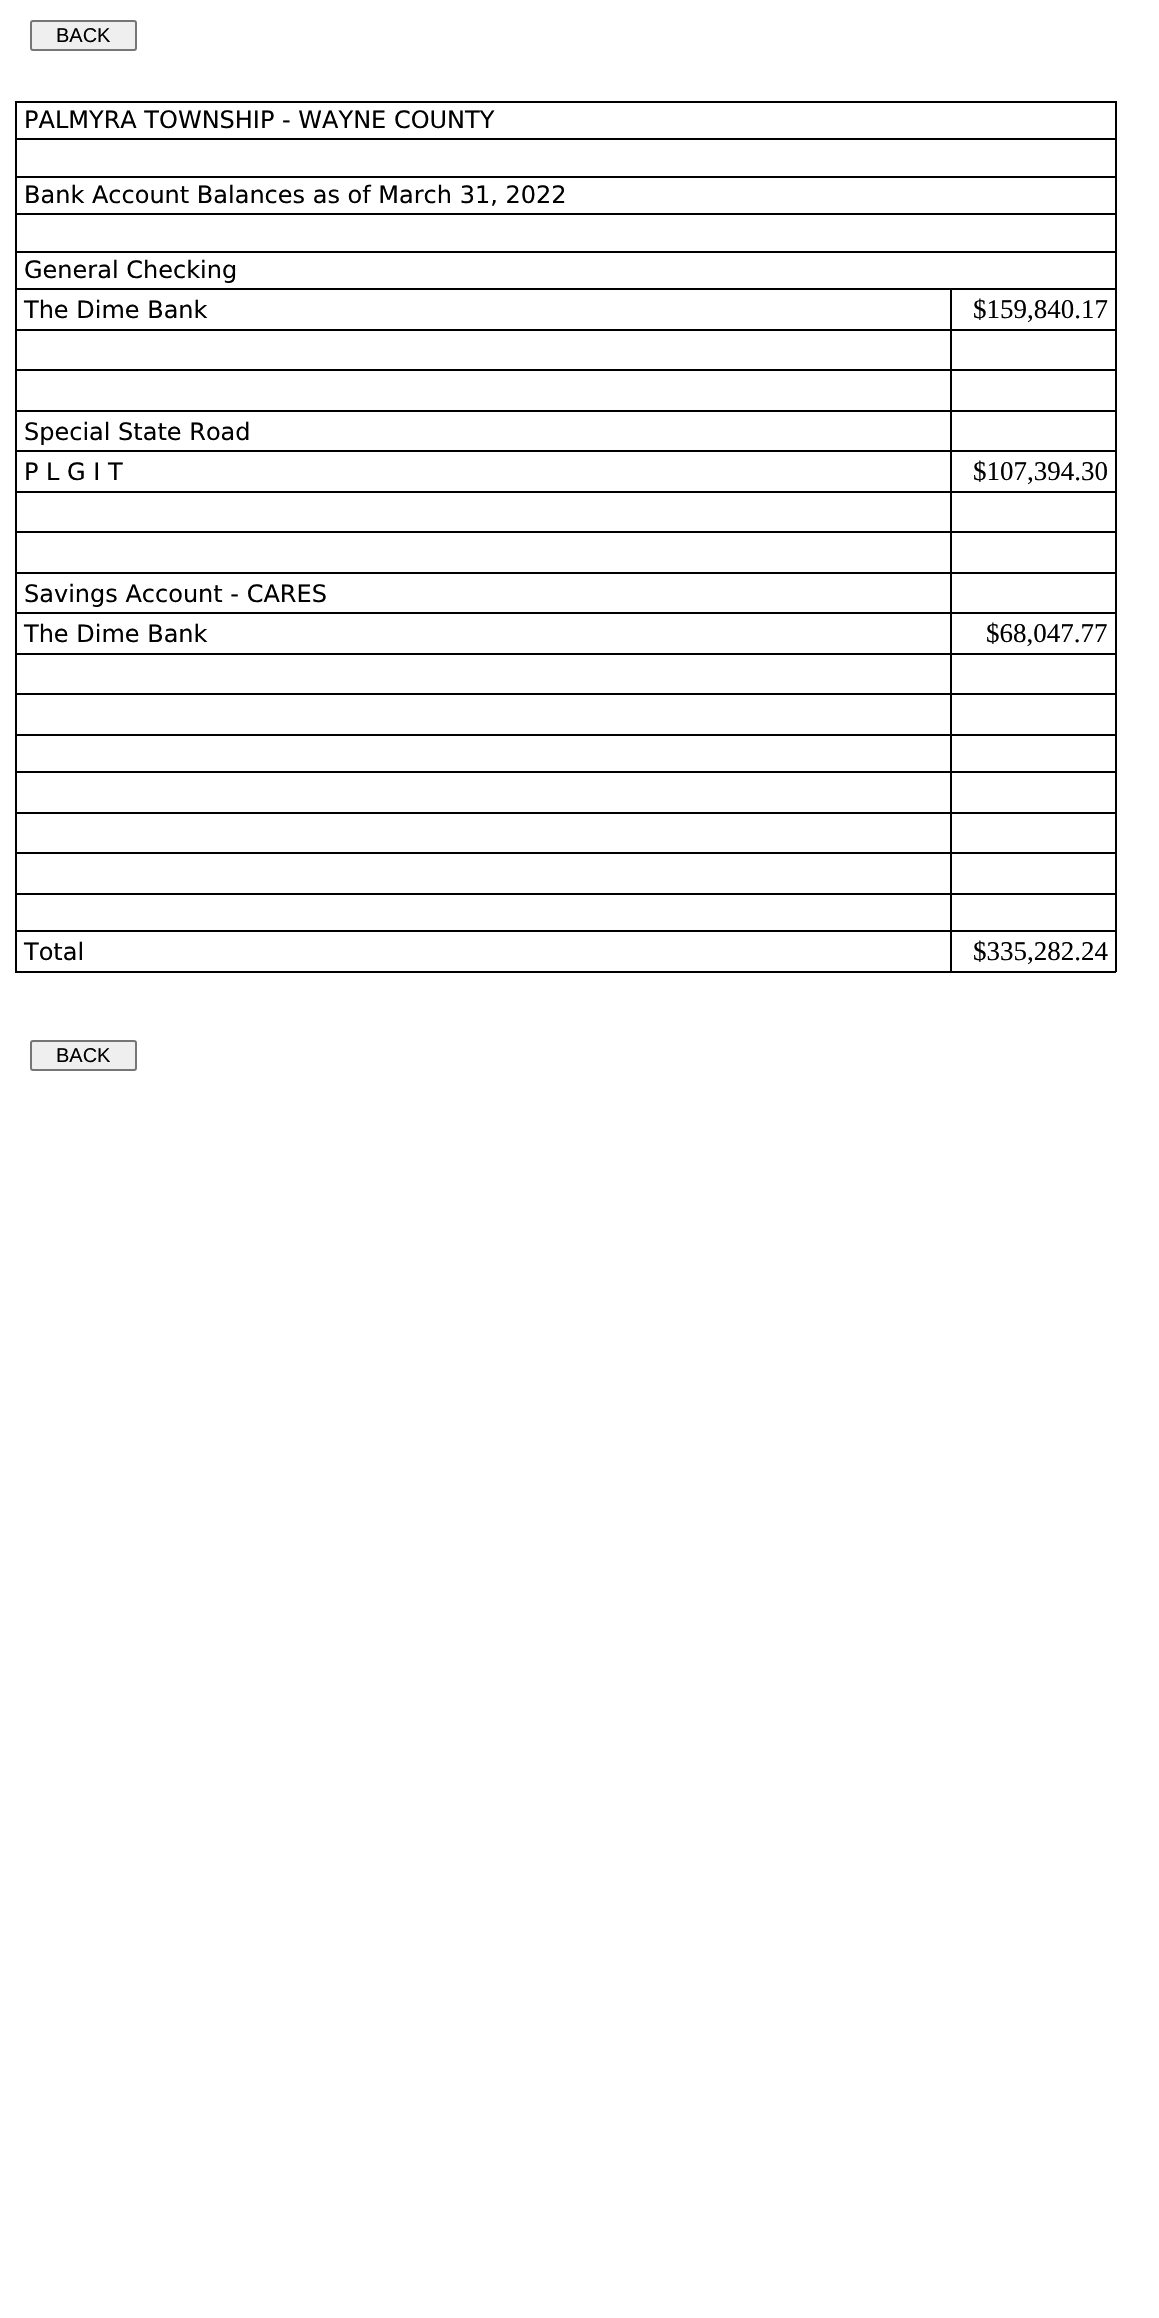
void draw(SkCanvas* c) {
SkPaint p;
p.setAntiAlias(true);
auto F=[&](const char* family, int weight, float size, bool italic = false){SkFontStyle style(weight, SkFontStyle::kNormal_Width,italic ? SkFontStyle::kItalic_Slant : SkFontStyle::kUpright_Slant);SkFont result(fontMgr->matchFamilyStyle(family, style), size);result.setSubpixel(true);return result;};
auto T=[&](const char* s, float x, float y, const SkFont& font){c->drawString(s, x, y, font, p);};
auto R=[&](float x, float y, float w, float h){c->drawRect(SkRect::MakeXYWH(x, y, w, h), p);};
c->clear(0xffffffff);
p.setColor(0xffefefef);
c->drawRoundRect(SkRect::MakeXYWH(31,21,105,29),2,2,p);
p.setStroke(true);
p.setStrokeWidth(2);
p.setColor(0xff767676);
c->drawRoundRect(SkRect::MakeXYWH(31,21,105,29),2,2,p);
auto f1 = F("Liberation Sans",400,20);
p.setStroke(false);
p.setColor(0xff000000);
T("BACK",56,42,f1);
R(15,101,1101,2);
R(1115,101,2,871);
R(15,971,1101,2);
R(15,101,2,871);
auto f2 = F("DejaVu Sans",400,24);
T("PALMYRA TOWNSHIP - WAYNE COUNTY",24,128,f2);
R(15,138,1101,2);
R(15,176,1101,2);
T("Bank Account Balances as of March 31, 2022",24,203,f2);
R(15,213,1101,2);
R(15,251,1101,2);
T("General Checking",24,278,f2);
R(15,288,1101,2);
T("The Dime Bank",24,318,f2);
auto f3 = F("Liberation Serif",400,27);
T("$159,840.17",973,318,f3);
R(15,329,1101,2);
R(15,369,1101,2);
R(15,410,1101,2);
T("Special State Road",24,440,f2);
R(15,450,1101,2);
T("P L G I T",24,480,f2);
T("$107,394.30",973,480,f3);
R(15,491,1101,2);
R(15,531,1101,2);
R(15,572,1101,2);
T("Savings Account - CARES",24,602,f2);
R(15,612,1101,2);
T("The Dime Bank",24,642,f2);
T("$68,047.77",986,642,f3);
R(15,653,1101,2);
R(15,693,1101,2);
R(15,734,1101,2);
R(15,771,1101,2);
R(15,812,1101,2);
R(15,852,1101,2);
R(15,893,1101,2);
R(15,930,1101,2);
T("Total",24,960,f2);
R(950,288,2,684);
T("$335,282.24",973,960,f3);
p.setColor(0xffefefef);
c->drawRoundRect(SkRect::MakeXYWH(31,1041,105,29),2,2,p);
p.setStroke(true);
p.setColor(0xff767676);
c->drawRoundRect(SkRect::MakeXYWH(31,1041,105,29),2,2,p);
p.setStroke(false);
p.setColor(0xff000000);
T("BACK",56,1062,f1);
}
